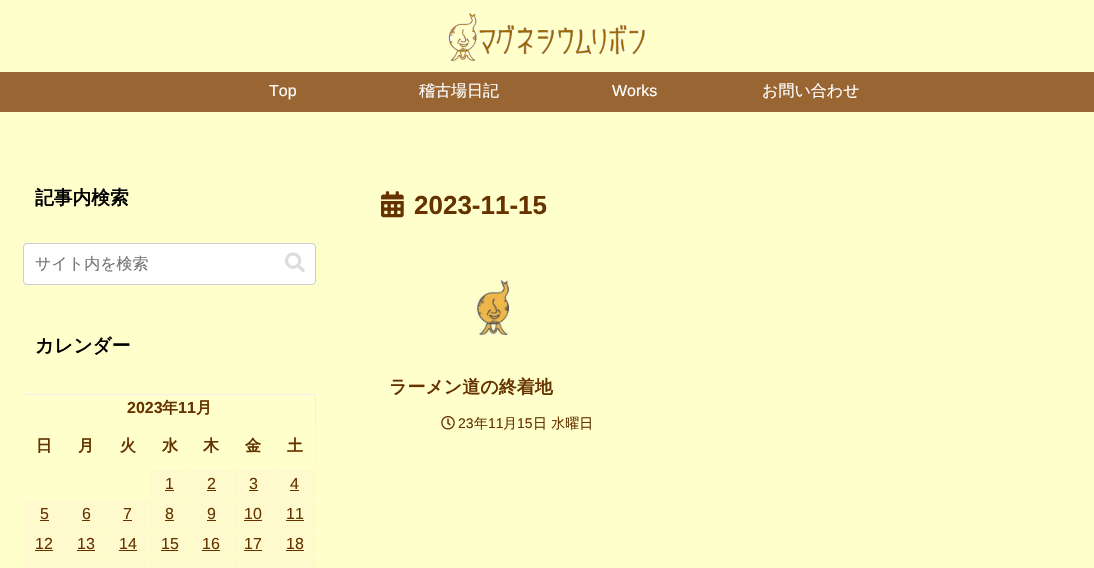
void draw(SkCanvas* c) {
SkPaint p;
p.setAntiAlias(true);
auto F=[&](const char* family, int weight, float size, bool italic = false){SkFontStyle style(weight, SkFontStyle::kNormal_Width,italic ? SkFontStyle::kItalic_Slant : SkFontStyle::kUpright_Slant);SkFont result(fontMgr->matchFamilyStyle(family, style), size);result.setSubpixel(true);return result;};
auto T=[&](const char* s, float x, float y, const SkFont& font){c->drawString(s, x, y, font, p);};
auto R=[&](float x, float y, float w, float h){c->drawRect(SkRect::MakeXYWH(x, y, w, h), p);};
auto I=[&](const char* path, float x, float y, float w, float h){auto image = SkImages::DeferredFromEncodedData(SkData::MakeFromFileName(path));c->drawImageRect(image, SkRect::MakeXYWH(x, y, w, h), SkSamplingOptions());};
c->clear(0xffffffcc);
I("1.png",448,13,198,48);
p.setColor(0xff996633);
R(0,72,1094,40);
auto f1 = F("Liberation Sans",400,16);
p.setColor(0xffffffff);
T("Top",269,96,f1);
auto f2 = F("WenQuanYi Zen Hei",500,16);
T("稽古場日記",419,96,f2);
T("Works",612,96,f1);
T("お問い合わせ",762,96,f2);
auto f3 = F("WenQuanYi Zen Hei",700,18.75);
p.setColor(0xff000000);
T("記事内検索",35,204,f3);
p.setColor(0xffffffff);
c->drawRoundRect(SkRect::MakeXYWH(23.5,243.5,292,41),3.5,3.5,p);
p.setStroke(true);
p.setStrokeWidth(1);
p.setColor(0xffcccccc);
c->drawRoundRect(SkRect::MakeXYWH(23.5,243.5,292,41),3.5,3.5,p);
p.setStroke(false);
p.setColor(0xff757575);
T("サイト内を検索",35,269,f2);
I("2.png",285,252,20,21);
p.setColor(0xff000000);
T("カレンダー",35,352,f3);
p.setColor(0xffeeeeee);
R(23,394,293,1);
R(315,394,1,29);
p.setColor(0xfff8f8db);
R(315,424,1,45);
p.setColor(0xfffbfbd5);
R(315,423,1,1);
p.setColor(0xfff7f7dd);
R(315,469,1,99);
p.setColor(0xfffefecf);
R(315,469,1,1);
R(315,499,1,1);
R(315,529,1,1);
R(315,558,1,1);
auto f4 = F("Liberation Sans",700,16);
p.setColor(0xff663300);
T("2023",127,413,f4);
auto f5 = F("WenQuanYi Zen Hei",700,16);
T("年",162,413,f5);
T("11",178,413,f4);
T("月",196,413,f5);
T("日",36,451,f5);
T("月",78,451,f5);
T("火",120,451,f5);
T("水",162,451,f5);
T("木",203,451,f5);
T("金",245,451,f5);
T("土",287,451,f5);
p.setColor(0xffffface);
R(149,470,41,29);
p.setColor(0xff663300);
T("1",165,489,f1);
R(165,490,9,1);
p.setColor(0xffffface);
R(191,470,41,29);
p.setColor(0xff663300);
T("2",207,489,f1);
R(207,490,9,1);
p.setColor(0xffffface);
R(233,470,40,29);
p.setColor(0xff663300);
T("3",249,489,f1);
R(249,490,9,1);
p.setColor(0xffffface);
R(274,470,41,29);
p.setColor(0xff663300);
T("4",290,489,f1);
R(290,490,9,1);
p.setColor(0xffffface);
R(24,500,41,29);
p.setColor(0xff663300);
T("5",40,519,f1);
R(40,520,9,1);
p.setColor(0xffffface);
R(66,500,40,29);
p.setColor(0xff663300);
T("6",82,519,f1);
R(82,520,8,1);
p.setColor(0xffffface);
R(107,500,41,29);
p.setColor(0xff663300);
T("7",123,519,f1);
R(123,520,9,1);
p.setColor(0xffffface);
R(149,500,41,29);
p.setColor(0xff663300);
T("8",165,519,f1);
R(165,520,9,1);
p.setColor(0xffffface);
R(191,500,41,29);
p.setColor(0xff663300);
T("9",207,519,f1);
R(207,520,9,1);
p.setColor(0xffffface);
R(233,500,40,29);
p.setColor(0xff663300);
T("10",244,519,f1);
R(244,520,18,1);
p.setColor(0xffffface);
R(274,500,41,29);
p.setColor(0xff663300);
T("11",286,519,f1);
R(286,520,18,1);
p.setColor(0xffffface);
R(24,530,41,28);
p.setColor(0xff663300);
T("12",35,549,f1);
R(35,550,18,1);
p.setColor(0xffffface);
R(66,530,40,28);
p.setColor(0xff663300);
T("13",77,549,f1);
R(77,550,18,1);
p.setColor(0xffffface);
R(107,530,41,28);
p.setColor(0xff663300);
T("14",119,549,f1);
R(119,550,18,1);
p.setColor(0xffffface);
R(149,530,41,28);
p.setColor(0xff663300);
T("15",161,549,f1);
R(161,550,17,1);
p.setColor(0xffffface);
R(191,530,41,28);
p.setColor(0xff663300);
T("16",202,549,f1);
R(202,550,18,1);
p.setColor(0xffffface);
R(233,530,40,28);
p.setColor(0xff663300);
T("17",244,549,f1);
R(244,550,18,1);
p.setColor(0xffffface);
R(274,530,41,28);
p.setColor(0xff663300);
T("18",286,549,f1);
R(286,550,18,1);
p.setColor(0xffffface);
R(24,559,41,9);
R(66,559,40,9);
R(107,559,41,9);
R(149,559,41,9);
R(191,559,41,9);
R(233,559,40,9);
R(274,559,41,9);
I("3.png",381,191,23,27);
auto f6 = F("Liberation Sans",700,26);
p.setColor(0xff663300);
T("2023-11-15",414,214,f6);
I("4.png",476,276,34,61);
auto f7 = F("WenQuanYi Zen Hei",700,18);
T("ラーメン道の終着地",389,393,f7);
I("5.png",441,416,14,14);
auto f8 = F("Liberation Sans",400,14);
T("23",458,428,f8);
auto f9 = F("WenQuanYi Zen Hei",500,14);
T("年",474,428,f9);
T("11",488,428,f8);
T("月",503,428,f9);
T("15",517,428,f8);
T("日 水曜日",533,428,f9);
}
